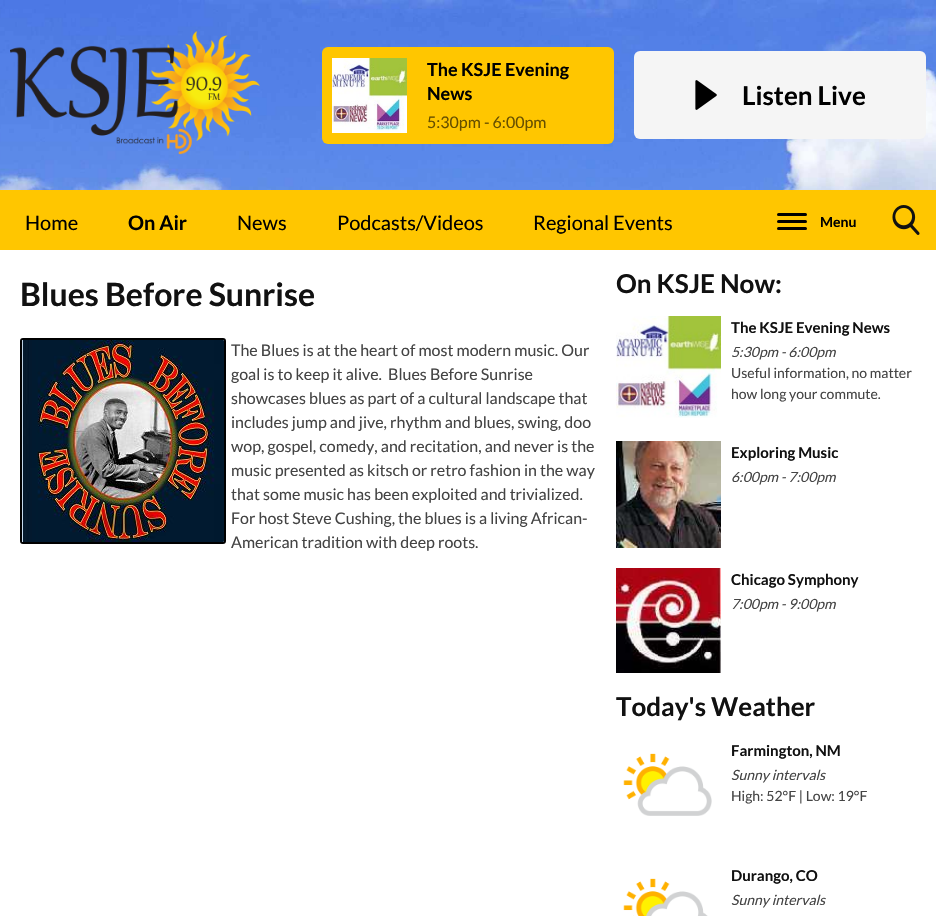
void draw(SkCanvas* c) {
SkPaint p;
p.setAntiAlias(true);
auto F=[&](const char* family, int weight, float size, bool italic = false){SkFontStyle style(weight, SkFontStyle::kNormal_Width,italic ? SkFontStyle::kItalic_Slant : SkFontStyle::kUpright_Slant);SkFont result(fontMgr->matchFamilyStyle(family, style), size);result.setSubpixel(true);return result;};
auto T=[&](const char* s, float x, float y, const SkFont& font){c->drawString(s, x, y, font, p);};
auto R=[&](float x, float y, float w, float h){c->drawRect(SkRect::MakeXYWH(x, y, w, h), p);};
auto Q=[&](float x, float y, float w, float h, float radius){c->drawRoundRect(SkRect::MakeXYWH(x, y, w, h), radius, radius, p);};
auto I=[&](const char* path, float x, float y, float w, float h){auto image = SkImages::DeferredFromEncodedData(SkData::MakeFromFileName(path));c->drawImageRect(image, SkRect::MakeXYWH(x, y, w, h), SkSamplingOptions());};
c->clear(0xffffffff);
I("1.png",0,0,936,190);
I("2.png",10,31,250,124);
p.setColor(0xffffc600);
Q(322,47,292,97,6);
I("3.png",332,58,75,75);
auto f1 = F("Lato",700,18);
p.setColor(0xff000000);
T("The KSJE Evening",427,76,f1);
T("News",427,100,f1);
auto f2 = F("Lato",400,16);
p.setColor(0xff664f00);
T("5:30pm - 6:00pm",427,128,f2);
p.setColor(0xfff5f5f5);
Q(634,51,292,88,6);
I("4.png",695,80,22,30);
auto f3 = F("Lato",700,26);
p.setColor(0xff000000);
T("Listen Live",742,105,f3);
p.setColor(0xffffc600);
R(0,190,936,60);
auto f4 = F("Lato",400,20);
p.setColor(0xff000000);
T("Home",25,230,f4);
auto f5 = F("Lato",700,20);
T("On Air",128,230,f5);
T("News",237,230,f4);
T("Podcasts/Videos",337,230,f4);
T("Regional Events",533,230,f4);
Q(777,213,30,3,1.5);
Q(777,220,30,3,1.5);
Q(777,227,30,3,1.5);
auto f6 = F("Lato",700,14);
T("Menu",820,227,f6);
I("5.png",892,205,28,30);
auto f7 = F("Lato",700,32);
p.setColor(0xff111111);
T("Blues Before Sunrise",20,306,f7);
p.setStroke(true);
p.setStrokeWidth(2);
p.setColor(0xff000000);
c->drawRoundRect(SkRect::MakeXYWH(21,339,204,204),2,2,p);
I("6.png",22,340,202,202);
p.setStroke(false);
p.setColor(0xff444444);
T("The Blues is at the heart of most modern music. Our",231,356,f2);
T("goal is to keep it alive.  Blues Before Sunrise",231,380,f2);
T("showcases blues as part of a cultural landscape that",231,404,f2);
T("includes jump and jive, rhythm and blues, swing, doo",231,428,f2);
T("wop, gospel, comedy, and recitation, and never is the",231,452,f2);
T("music presented as kitsch or retro fashion in the way",231,476,f2);
T("that some music has been exploited and trivialized.",231,500,f2);
T("For host Steve Cushing, the blues is a living African-",231,524,f2);
T("American tradition with deep roots.",231,548,f2);
p.setColor(0xff111111);
T("On KSJE Now:",616,293,f3);
I("7.png",616,316,105,102);
auto f8 = F("Lato",700,15);
T("The KSJE Evening News",731,333,f8);
auto f9 = F("Lato",400,14,true);
p.setColor(0xff444444);
T("5:30pm - 6:00pm",731,357,f9);
auto f10 = F("Lato",400,14);
T("Useful information, no matter",731,378,f10);
T("how long your commute.",731,399,f10);
I("8.png",616,441,105,107);
p.setColor(0xff111111);
T("Exploring Music",731,458,f8);
p.setColor(0xff444444);
T("6:00pm - 7:00pm",731,482,f9);
I("9.png",616,568,105,105);
p.setColor(0xff111111);
T("Chicago Symphony",731,585,f8);
p.setColor(0xff444444);
T("7:00pm - 9:00pm",731,609,f9);
p.setColor(0xff111111);
T("Today's Weather",616,716,f3);
I("10.png",623,753,89,63);
T("Farmington, NM",731,756,f8);
p.setColor(0xff444444);
T("Sunny intervals",731,780,f9);
T("High: 52°F | Low: 19°F",731,801,f10);
I("11.png",623,878,85,38);
p.setColor(0xff111111);
T("Durango, CO",731,881,f8);
p.setColor(0xff444444);
T("Sunny intervals",731,905,f9);
}
